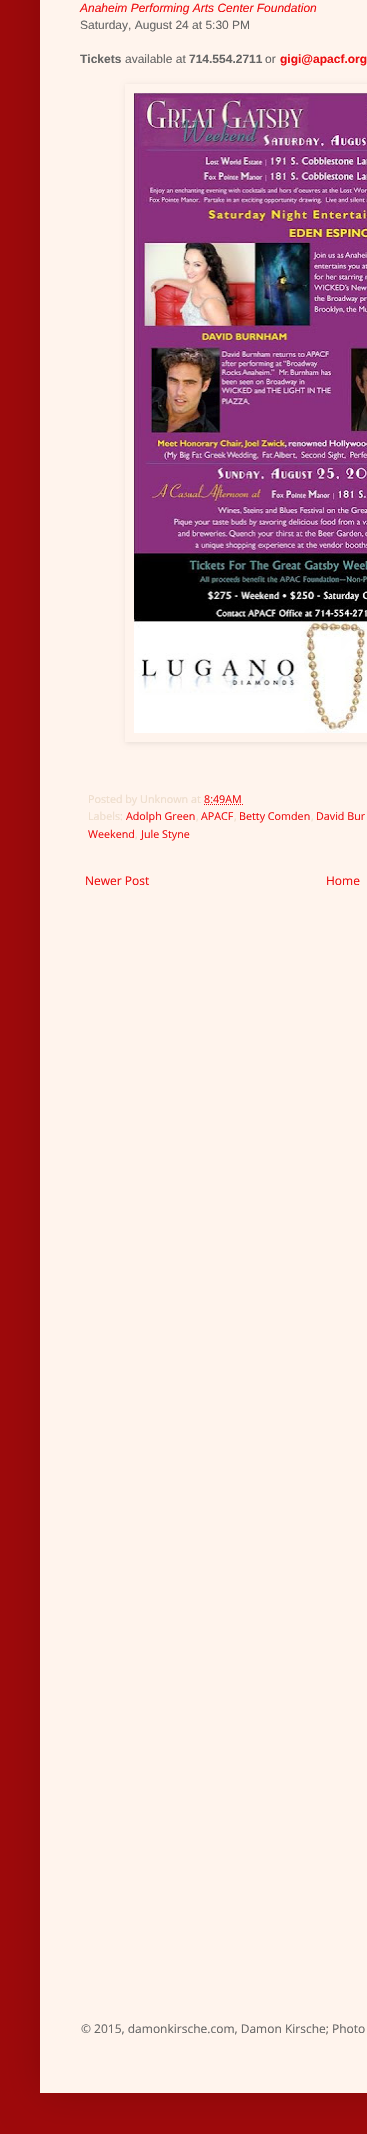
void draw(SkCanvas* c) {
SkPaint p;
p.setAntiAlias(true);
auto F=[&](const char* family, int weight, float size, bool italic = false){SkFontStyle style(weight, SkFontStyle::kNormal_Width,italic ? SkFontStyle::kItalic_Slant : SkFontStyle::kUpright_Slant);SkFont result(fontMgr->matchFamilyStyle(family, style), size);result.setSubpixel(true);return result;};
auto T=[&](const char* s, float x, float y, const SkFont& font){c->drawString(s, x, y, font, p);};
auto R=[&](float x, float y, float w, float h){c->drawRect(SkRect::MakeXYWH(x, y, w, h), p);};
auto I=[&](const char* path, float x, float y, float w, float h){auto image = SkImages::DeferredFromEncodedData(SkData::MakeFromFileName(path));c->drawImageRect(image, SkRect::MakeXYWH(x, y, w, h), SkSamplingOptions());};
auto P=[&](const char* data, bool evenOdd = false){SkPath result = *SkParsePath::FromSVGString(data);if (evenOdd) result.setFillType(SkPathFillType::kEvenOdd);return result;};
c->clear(0xff9e090b);
p.setColor(0x26000000);
p.setMaskFilter(SkMaskFilter::MakeBlur(kNormal_SkBlurStyle, 20));
c->drawRect(SkRect::MakeXYWH(40,-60,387,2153),p);
p.setMaskFilter(nullptr);
p.setColor(0xfffff4ed);
R(40,0,327,2093);
auto f1 = F("Liberation Sans",400,12,true);
p.setColor(0xffed0d10);
T("Anaheim Performing Arts Center Foundation",80,12,f1);
auto f2 = F("Liberation Sans",400,12);
p.setColor(0xff666666);
T("Saturday, August 24 at 5:30 PM",80,29,f2);
auto f3 = F("Liberation Sans",700,12);
T("Tickets",80,63,f3);
T("available at",125,63,f2);
T("714.554.2711",189,63,f3);
T("or",265,63,f2);
p.setColor(0xffed0d10);
T("gigi@apacf.org",280,63,f3);
c->save();
c->clipPath(P("M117 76h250v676h-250zm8 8h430v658h-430z",true),true);
p.setColor(0x1a000000);
p.setMaskFilter(SkMaskFilter::MakeBlur(kNormal_SkBlurStyle, 2.5));
c->drawRect(SkRect::MakeXYWH(126,85,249,658),p);
p.setMaskFilter(nullptr);
c->restore();
I("1.png",134,93,233,640);
auto f4 = F("Open Sans",400,10.75);
p.setColor(0xffeddccb);
T("Posted by Unknown at",88,803,f4);
p.setColor(0xffed0d10);
T("8:49 AM",204,803,f4);
p.setStroke(true);
p.setStrokeWidth(1);
p.setPathEffect(SkDashPathEffect::Make({{1,1}}, 0));
c->drawPath(P("M204 804.5h39.5"),p);
p.setPathEffect(nullptr);
p.setStroke(false);
p.setColor(0xffeddccb);
T("Labels:",88,820,f4);
p.setColor(0xffed0d10);
T("Adolph Green",126,820,f4);
p.setColor(0xffeddccb);
T(",",196,820,f4);
p.setColor(0xffed0d10);
T("APACF",201,820,f4);
p.setColor(0xffeddccb);
T(",",234,820,f4);
p.setColor(0xffed0d10);
T("Betty Comden",239,820,f4);
p.setColor(0xffeddccb);
T(",",311,820,f4);
p.setColor(0xffed0d10);
T("David Bur",316,820,f4);
T("Weekend",88,838,f4);
p.setColor(0xffeddccb);
T(",",135,838,f4);
p.setColor(0xffed0d10);
T("Jule Styne",141,838,f4);
auto f5 = F("Open Sans",400,12);
T("Newer Post",85,885,f5);
T("Home",326,885,f5);
p.setColor(0xff666666);
T("© 2015, damonkirsche.com, Damon Kirsche; Photo",81,2033,f5);
}
